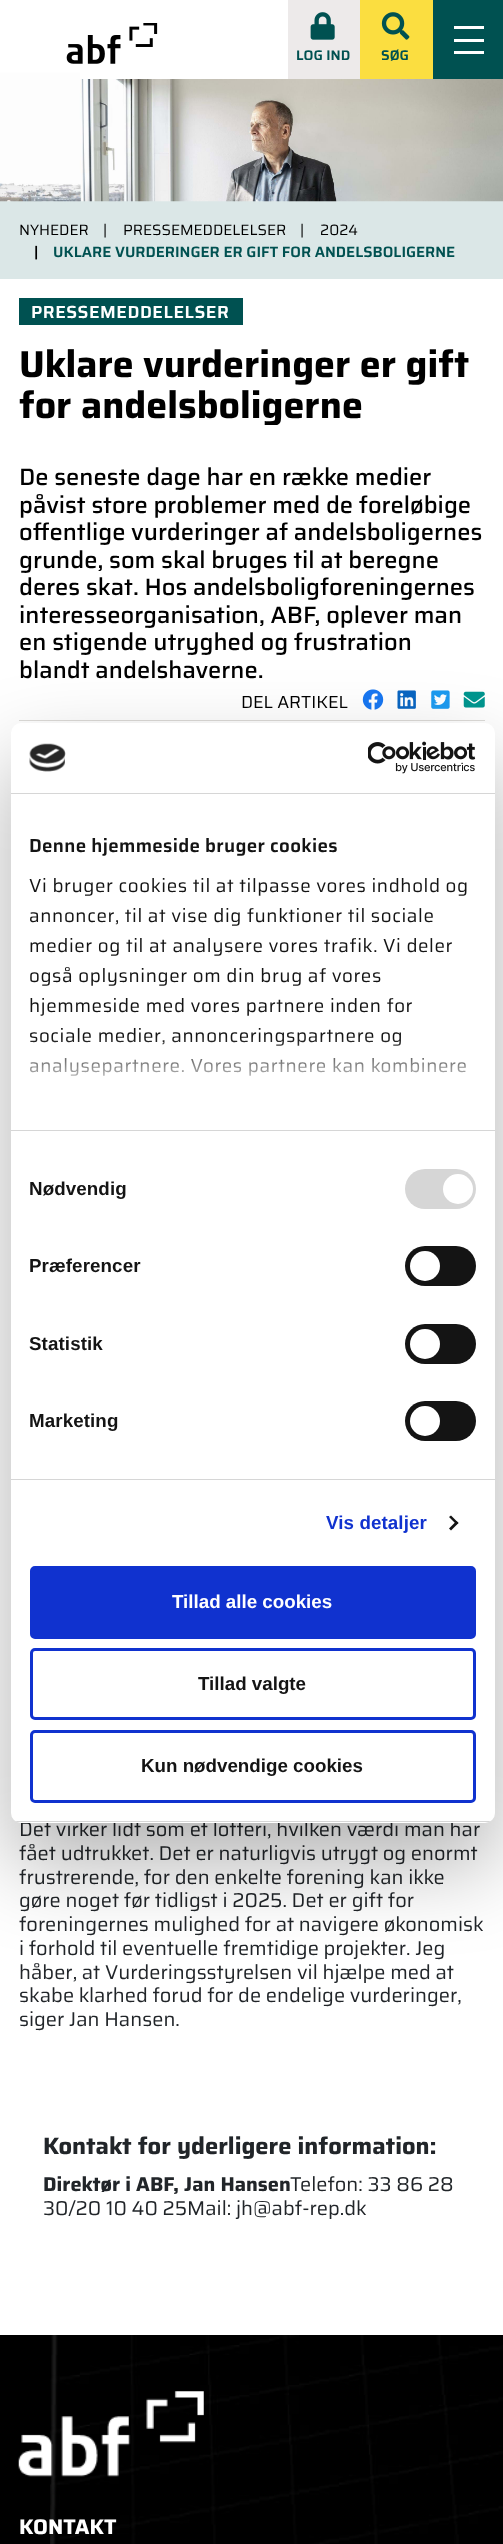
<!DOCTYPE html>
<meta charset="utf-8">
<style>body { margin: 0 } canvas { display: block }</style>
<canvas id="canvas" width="503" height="2544"></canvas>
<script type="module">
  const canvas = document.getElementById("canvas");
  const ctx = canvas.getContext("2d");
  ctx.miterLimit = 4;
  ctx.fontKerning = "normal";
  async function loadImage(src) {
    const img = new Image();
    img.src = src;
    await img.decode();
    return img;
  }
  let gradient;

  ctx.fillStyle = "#ffffff";
  ctx.fillRect(0, 0, 503, 2544);
  ctx.fillStyle = "#dbe7e7";
  ctx.fillRect(0, 201, 503, 78);
  ctx.drawImage(await loadImage("img4.png"), 0, 72, 503, 130);
  ctx.fillStyle = "#ffffff";
  ctx.fillRect(80, 72, 208, 7);
  ctx.drawImage(await loadImage("img1.png"), 66, 23, 92, 41);
  ctx.fillStyle = "#edeaea";
  ctx.fillRect(288, 0, 72, 79);
  ctx.drawImage(await loadImage("img2.png"), 310, 12, 25, 28);
  ctx.font = "100 14px 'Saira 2'";
  ctx.fillStyle = "#005151";
  ctx.fillText("LOG IND", 296, 60);
  ctx.fillStyle = "#fbde40";
  ctx.fillRect(360, 0, 73, 79);
  ctx.drawImage(await loadImage("img3.png"), 381, 12, 29, 28);
  ctx.fillStyle = "#005151";
  ctx.fillText("SØG", 381, 60);
  ctx.fillRect(433, 0, 70, 79);
  ctx.fillStyle = "#ffffff";
  ctx.fillRect(454, 39, 30, 3);
  ctx.fillRect(454, 26, 30, 3);
  ctx.fillRect(454, 51, 30, 3);
  ctx.font = "100 15px Saira";
  ctx.fillStyle = "#000000";
  ctx.fillText("NYHEDER", 19, 235);
  ctx.fillText("|", 103, 235);
  ctx.fillText("PRESSEMEDDELELSER", 123, 235);
  ctx.fillText("|", 300, 235);
  ctx.fillText("2024", 320, 235);
  ctx.font = "100 15px 'Saira 2'";
  ctx.fillText("|", 34, 257);
  ctx.fillStyle = "#005151";
  ctx.fillText("UKLARE VURDERINGER ER GIFT FOR ANDELSBOLIGERNE", 53, 257);
  ctx.fillRect(19, 298, 224, 27);
  ctx.letterSpacing = "0.5px";
  ctx.font = "100 17.5px 'Saira 2'";
  ctx.fillStyle = "#ffffff";
  ctx.fillText("PRESSEMEDDELELSER", 31, 318);
  ctx.letterSpacing = "0px";
  ctx.font = "100 37.5px 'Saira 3'";
  ctx.fillStyle = "#000000";
  ctx.fillText("Uklare vurderinger er gift", 19, 377);
  ctx.save();
  ctx.beginPath();
  ctx.rect(19, 343, 466, 82);
  ctx.clip();
  ctx.fillText("for andelsboligerne", 19, 418);
  ctx.restore();
  ctx.font = "100 23.75px 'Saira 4'";
  ctx.fillText("De seneste dage har en række medier", 19, 485);
  ctx.fillText("påvist store problemer med de foreløbige", 19, 513);
  ctx.fillText("offentlige vurderinger af andelsboligernes", 19, 540);
  ctx.fillText("grunde, som skal bruges til at beregne", 19, 568);
  ctx.fillText("deres skat. Hos andelsboligforeningernes", 19, 595);
  ctx.fillText("interesseorganisation, ABF, oplever man", 19, 623);
  ctx.fillText("en stigende utryghed og frustration", 19, 650);
  ctx.fillText("blandt andelshaverne.", 19, 678);
  ctx.font = "100 17.5px Saira";
  ctx.fillText("DEL ARTIKEL", 241, 708);
  ctx.drawImage(await loadImage("img5.png"), 362, 689, 22, 21);
  ctx.drawImage(await loadImage("img6.png"), 397, 690, 19, 19);
  ctx.drawImage(await loadImage("img7.png"), 431, 690, 19, 19);
  ctx.drawImage(await loadImage("img8.png"), 463, 691, 22, 17);
  ctx.fillStyle = "#dddbd8";
  ctx.fillRect(19, 720, 466, 1);
  ctx.font = "100 20px Saira";
  ctx.fillStyle = "#212529";
  ctx.fillText("Det virker lidt som et lotteri, hvilken værdi man har", 19, 1836);
  ctx.fillText("fået udtrukket. Det er naturligvis utrygt og enormt", 19, 1860);
  ctx.fillText("frustrerende, for den enkelte forening kan ikke", 19, 1884);
  ctx.fillText("gøre noget før tidligst i 2025. Det er gift for", 19, 1907);
  ctx.fillText("foreningernes mulighed for at navigere økonomisk", 19, 1931);
  ctx.fillText("i forhold til eventuelle fremtidige projekter. Jeg", 19, 1955);
  ctx.fillText("håber, at Vurderingsstyrelsen vil hjælpe med at", 19, 1979);
  ctx.fillText("skabe klarhed forud for de endelige vurderinger,", 19, 2002);
  ctx.fillText("siger Jan Hansen.", 19, 2026);
  ctx.font = "100 23.75px 'Saira 3'";
  ctx.fillText("Kontakt for yderligere information:", 43, 2154);
  ctx.font = "100 20px 'Saira 3'";
  ctx.fillText("Direktør i ABF, Jan Hansen", 43, 2191);
  ctx.font = "100 20px Saira";
  ctx.fillText("Telefon: 33 86 28", 290, 2191);
  ctx.fillText("30/20 10 40 25Mail: jh@abf-rep.dk", 43, 2215);
  ctx.fillStyle = "rgba(0, 0, 0, 0.3)";
  ctx.filter = "blur(42.5px)";
  ctx.beginPath();
  ctx.roundRect(11, 763, 484, 1100, 10);
  ctx.fill();
  ctx.filter = "none";
  ctx.fillStyle = "#ffffff";
  ctx.beginPath();
  ctx.roundRect(11, 723, 484, 1100, 10);
  ctx.fill();
  ctx.fillStyle = "#d6d6d6";
  ctx.fillRect(11, 793, 484, 1);
  ctx.drawImage(await loadImage("img9.png"), 29, 743, 37, 29);
  ctx.drawImage(await loadImage("img10.png"), 368, 741, 108, 33);
  ctx.fillRect(11, 1130, 484, 1);
  ctx.letterSpacing = "0.3px";
  ctx.font = "100 18.75px 'Saira 2'";
  ctx.fillStyle = "#141414";
  ctx.fillText("Denne hjemmeside bruger cookies", 29, 852);
  ctx.letterSpacing = "0.6px";
  ctx.font = "100 18.75px Saira";
  ctx.fillText("Vi bruger cookies til at tilpasse vores indhold og", 29, 892);
  ctx.fillText("annoncer, til at vise dig funktioner til sociale", 29, 922);
  ctx.fillText("medier og til at analysere vores trafik. Vi deler", 29, 952);
  ctx.fillText("også oplysninger om din brug af vores", 29, 982);
  ctx.fillText("hjemmeside med vores partnere inden for", 29, 1012);
  ctx.fillText("sociale medier, annonceringspartnere og", 29, 1042);
  ctx.fillText("analysepartnere. Vores partnere kan kombinere", 29, 1072);
  gradient = ctx.createLinearGradient(244, 1130, 244, 1037);
  gradient.addColorStop(0, "#ffffff");
  gradient.addColorStop(0.5, "rgba(255, 255, 255, 0.8)");
  gradient.addColorStop(1, "rgba(255, 255, 255, 0)");
  ctx.fillStyle = gradient;
  ctx.fillRect(29, 1038, 438, 38);
  ctx.fillStyle = "#d6d6d6";
  ctx.fillRect(11, 1479, 484, 1);
  ctx.letterSpacing = "0.1px";
  ctx.font = "bold 18.75px Liberation Sans";
  ctx.fillStyle = "#141414";
  ctx.fillText("Nødvendig", 29, 1195);
  ctx.fillStyle = "#d6d6d6";
  ctx.beginPath();
  ctx.roundRect(405, 1169, 71, 40, 20);
  ctx.fill();
  ctx.fillStyle = "#ffffff";
  ctx.beginPath();
  ctx.arc(458, 1189, 15, 0, Math.PI * 2);
  ctx.fill();
  ctx.fillStyle = "#141414";
  ctx.fillText("Præferencer", 29, 1272);
  ctx.beginPath();
  ctx.roundRect(405, 1246, 71, 40, 20);
  ctx.fill();
  ctx.fillStyle = "#ffffff";
  ctx.beginPath();
  ctx.arc(425, 1266, 15, 0, Math.PI * 2);
  ctx.fill();
  ctx.fillStyle = "#141414";
  ctx.fillText("Statistik", 29, 1350);
  ctx.beginPath();
  ctx.roundRect(405, 1324, 71, 40, 20);
  ctx.fill();
  ctx.fillStyle = "#ffffff";
  ctx.beginPath();
  ctx.arc(425, 1344, 15, 0, Math.PI * 2);
  ctx.fill();
  ctx.fillStyle = "#141414";
  ctx.fillText("Marketing", 29, 1427);
  ctx.beginPath();
  ctx.roundRect(405, 1401, 71, 40, 20);
  ctx.fill();
  ctx.fillStyle = "#ffffff";
  ctx.beginPath();
  ctx.arc(425, 1421, 15, 0, Math.PI * 2);
  ctx.fill();
  ctx.fillStyle = "#1032cf";
  ctx.fillText("Vis detaljer", 326, 1529);
  ctx.fillStyle = "#141414";
  ctx.beginPath();
  ctx.moveTo(451, 1515.5);
  ctx.lineTo(458.5, 1523);
  ctx.lineTo(456.5, 1524.5);
  ctx.lineTo(449, 1517);
  ctx.closePath();
  ctx.fill();
  ctx.beginPath();
  ctx.moveTo(456.5, 1521);
  ctx.lineTo(458.5, 1523);
  ctx.lineTo(451, 1530.5);
  ctx.lineTo(449, 1528.5);
  ctx.closePath();
  ctx.fill();
  ctx.save();
  ctx.beginPath();
  ctx.roundRect(11, 723, 484, 1100, 10);
  ctx.clip();
  ctx.fillStyle = "#d6d6d6";
  ctx.fillRect(11, 1821, 484, 1);
  ctx.restore();
  ctx.fillStyle = "#1032cf";
  ctx.beginPath();
  ctx.roundRect(31.5, 1567.5, 443, 70, 3.5);
  ctx.fill();
  ctx.strokeStyle = "#1032cf";
  ctx.lineWidth = 3;
  ctx.stroke();
  ctx.letterSpacing = "0px";
  ctx.fillStyle = "#ffffff";
  ctx.fillText("Tillad alle cookies", 172, 1608);
  ctx.beginPath();
  ctx.roundRect(31.5, 1649.5, 443, 69, 3.5);
  ctx.stroke();
  ctx.fillStyle = "#141414";
  ctx.fillText("Tillad valgte", 198, 1690);
  ctx.beginPath();
  ctx.roundRect(31.5, 1731.5, 443, 70, 3.5);
  ctx.stroke();
  ctx.fillText("Kun nødvendige cookies", 141, 1772);
  ctx.fillStyle = "#000000";
  ctx.fillRect(0, 2335, 50, 209);
  ctx.drawImage(await loadImage("img11.png"), 50, 2335, 453, 209);
  ctx.drawImage(await loadImage("img12.png"), 18, 2391, 186, 86);
  ctx.font = "100 21.25px 'Saira 3'";
  ctx.fillStyle = "#ffffff";
  ctx.fillText("KONTAKT", 19, 2534);
</script>
